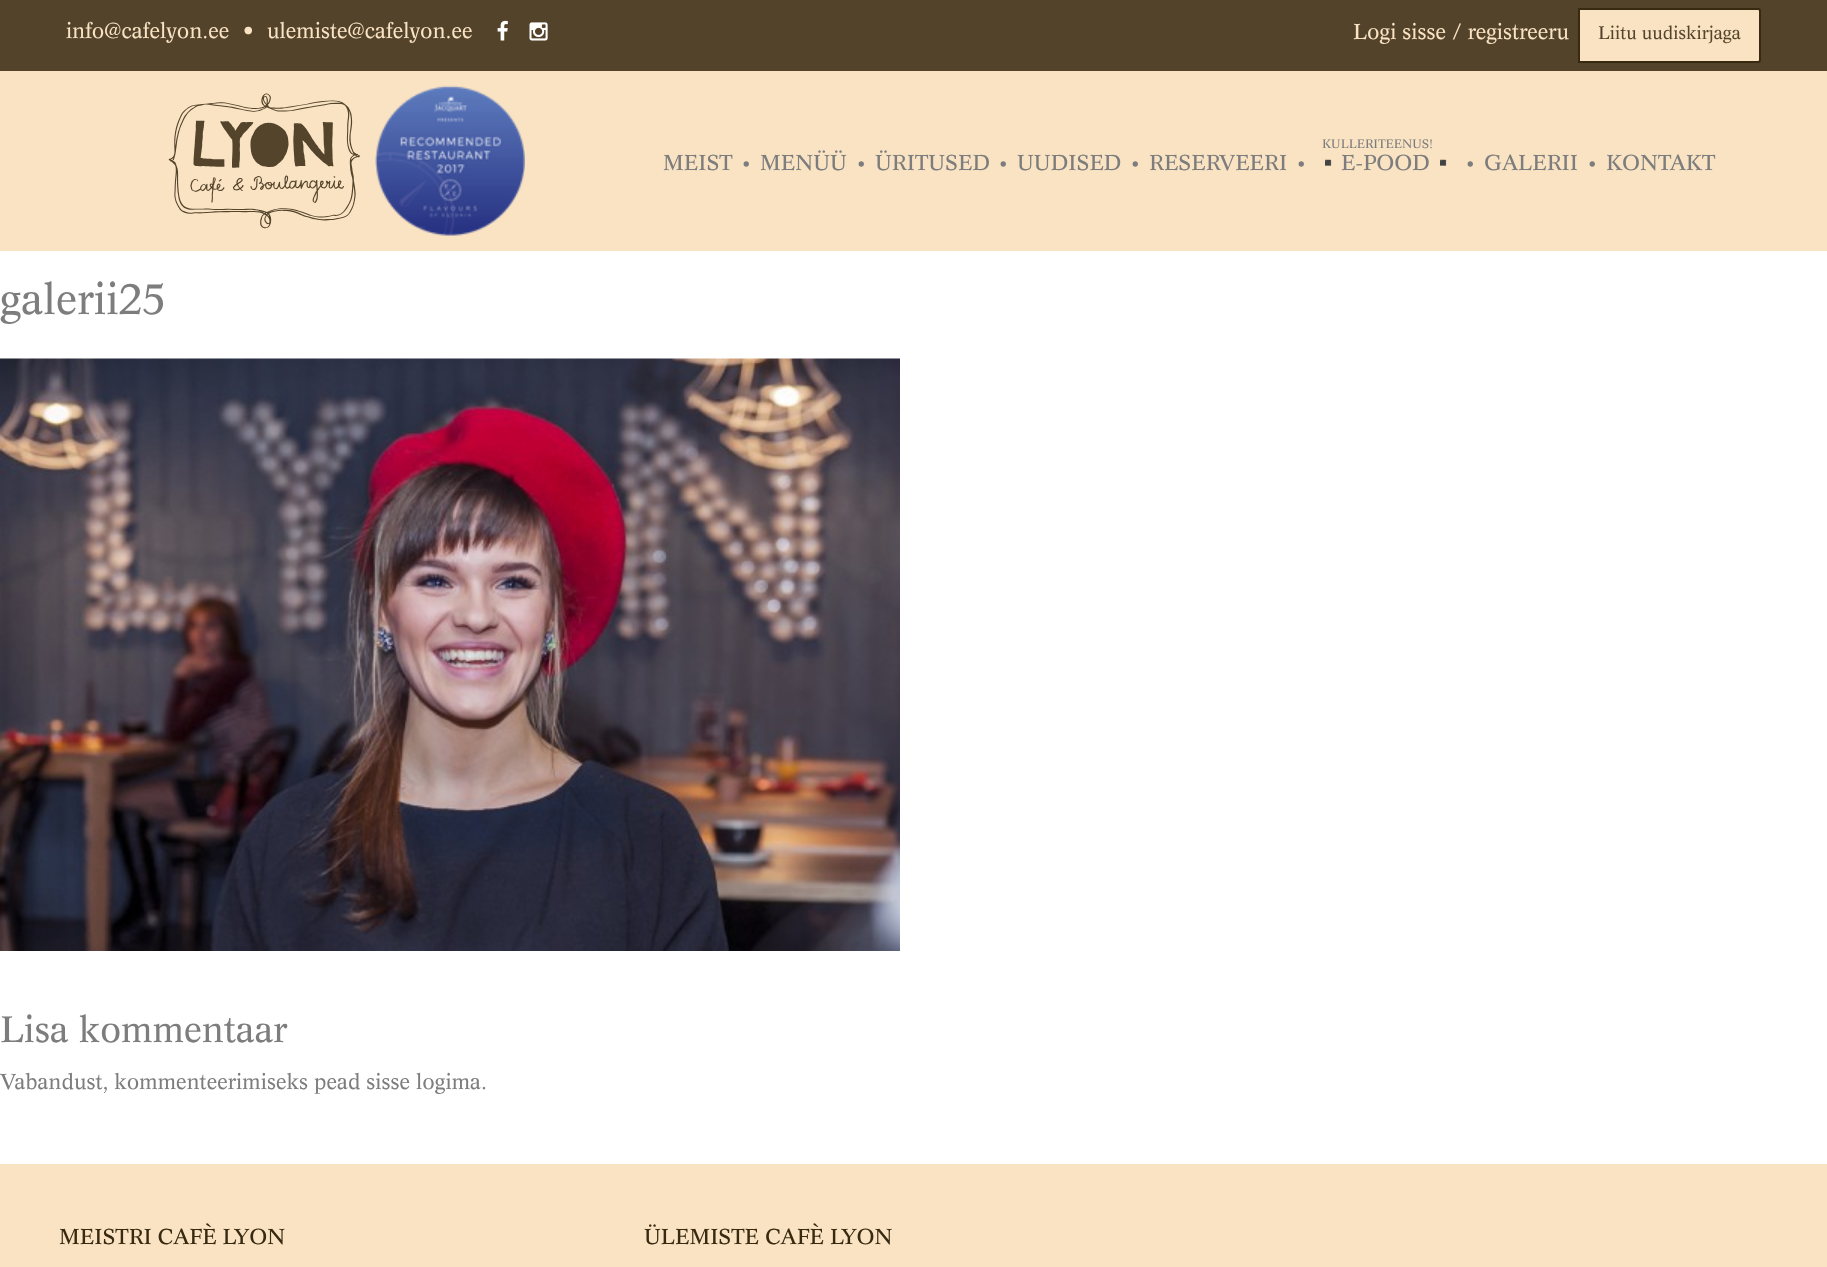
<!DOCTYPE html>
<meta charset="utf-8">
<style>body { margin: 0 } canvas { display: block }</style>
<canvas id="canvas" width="1827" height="1267"></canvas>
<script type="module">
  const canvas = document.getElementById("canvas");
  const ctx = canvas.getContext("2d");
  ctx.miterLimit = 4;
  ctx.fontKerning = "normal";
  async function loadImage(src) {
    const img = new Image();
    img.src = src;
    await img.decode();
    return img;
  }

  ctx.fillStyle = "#f9e3c3";
  ctx.fillRect(0, 0, 1827, 1267);
  ctx.fillStyle = "#54432b";
  ctx.fillRect(0, 0, 1827, 71);
  ctx.font = "21.15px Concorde";
  ctx.fillStyle = "#f9e3c3";
  ctx.fillText("info@cafelyon.ee", 66, 38);
  ctx.fillText("•", 243, 38);
  ctx.fillText("ulemiste@cafelyon.ee", 267, 38);
  ctx.drawImage(await loadImage("img1.png"), 497, 20, 11, 21);
  ctx.drawImage(await loadImage("img2.png"), 529, 22, 19, 19);
  ctx.fillText("Logi sisse / registreeru", 1353, 39);
  ctx.beginPath();
  ctx.roundRect(1579, 9, 181, 53, [0, 2, 2, 0]);
  ctx.fill();
  ctx.strokeStyle = "#382911";
  ctx.lineWidth = 2;
  ctx.stroke();
  ctx.font = "17.75px Concorde";
  ctx.fillStyle = "#55442c";
  ctx.fillText("Liitu uudiskirjaga", 1598, 39);
  ctx.drawImage(await loadImage("img3.png"), 168, 93, 192, 136);
  ctx.drawImage(await loadImage("img4.png"), 375, 85, 150, 151);
  ctx.font = "21.15px Concorde";
  ctx.fillStyle = "#7d7d7d";
  ctx.fillText("MEIST", 663, 170);
  ctx.font = "45px Concorde";
  ctx.fillText("·", 740, 178);
  ctx.font = "21.15px Concorde";
  ctx.fillText("MENÜÜ", 760, 170);
  ctx.font = "45px Concorde";
  ctx.fillText("·", 855, 178);
  ctx.font = "21.15px Concorde";
  ctx.fillText("ÜRITUSED", 875, 170);
  ctx.font = "45px Concorde";
  ctx.fillText("·", 997, 178);
  ctx.font = "21.15px Concorde";
  ctx.fillText("UUDISED", 1017, 170);
  ctx.font = "45px Concorde";
  ctx.fillText("·", 1129, 178);
  ctx.font = "21.15px Concorde";
  ctx.fillText("RESERVEERI", 1149, 170);
  ctx.font = "45px Concorde";
  ctx.fillText("·", 1295, 178);
  ctx.font = "12px Concorde";
  ctx.fillText("KULLERITEENUS!", 1322, 148);
  ctx.font = "21.15px Noto Color Emoji";
  ctx.fillText("▪️", 1315, 170);
  ctx.font = "21.15px Concorde";
  ctx.fillText("E-POOD", 1341, 170);
  ctx.font = "21.15px Noto Color Emoji";
  ctx.fillText("▪️", 1430, 170);
  ctx.font = "45px Concorde";
  ctx.fillText("·", 1464, 178);
  ctx.font = "21.15px Concorde";
  ctx.fillText("GALERII", 1484, 170);
  ctx.font = "45px Concorde";
  ctx.fillText("·", 1586, 178);
  ctx.font = "21.15px Concorde";
  ctx.fillText("KONTAKT", 1606, 170);
  ctx.fillStyle = "#ffffff";
  ctx.fillRect(0, 251, 1827, 913);
  ctx.font = "42.5px Concorde";
  ctx.fillStyle = "#7d7d7d";
  ctx.fillText("galerii25", 0, 314);
  ctx.drawImage(await loadImage("img5.png"), 0, 358, 900, 593);
  ctx.font = "36px Concorde";
  ctx.fillText("Lisa kommentaar", 0, 1042);
  ctx.font = "21.15px Concorde";
  ctx.fillText("Vabandust, kommenteerimiseks pead sisse logima.", 0, 1089);
  ctx.fillStyle = "#382911";
  ctx.fillText("MEISTRI CAFÈ LYON", 59, 1244);
  ctx.fillText("ÜLEMISTE CAFÈ LYON", 644, 1244);
</script>
